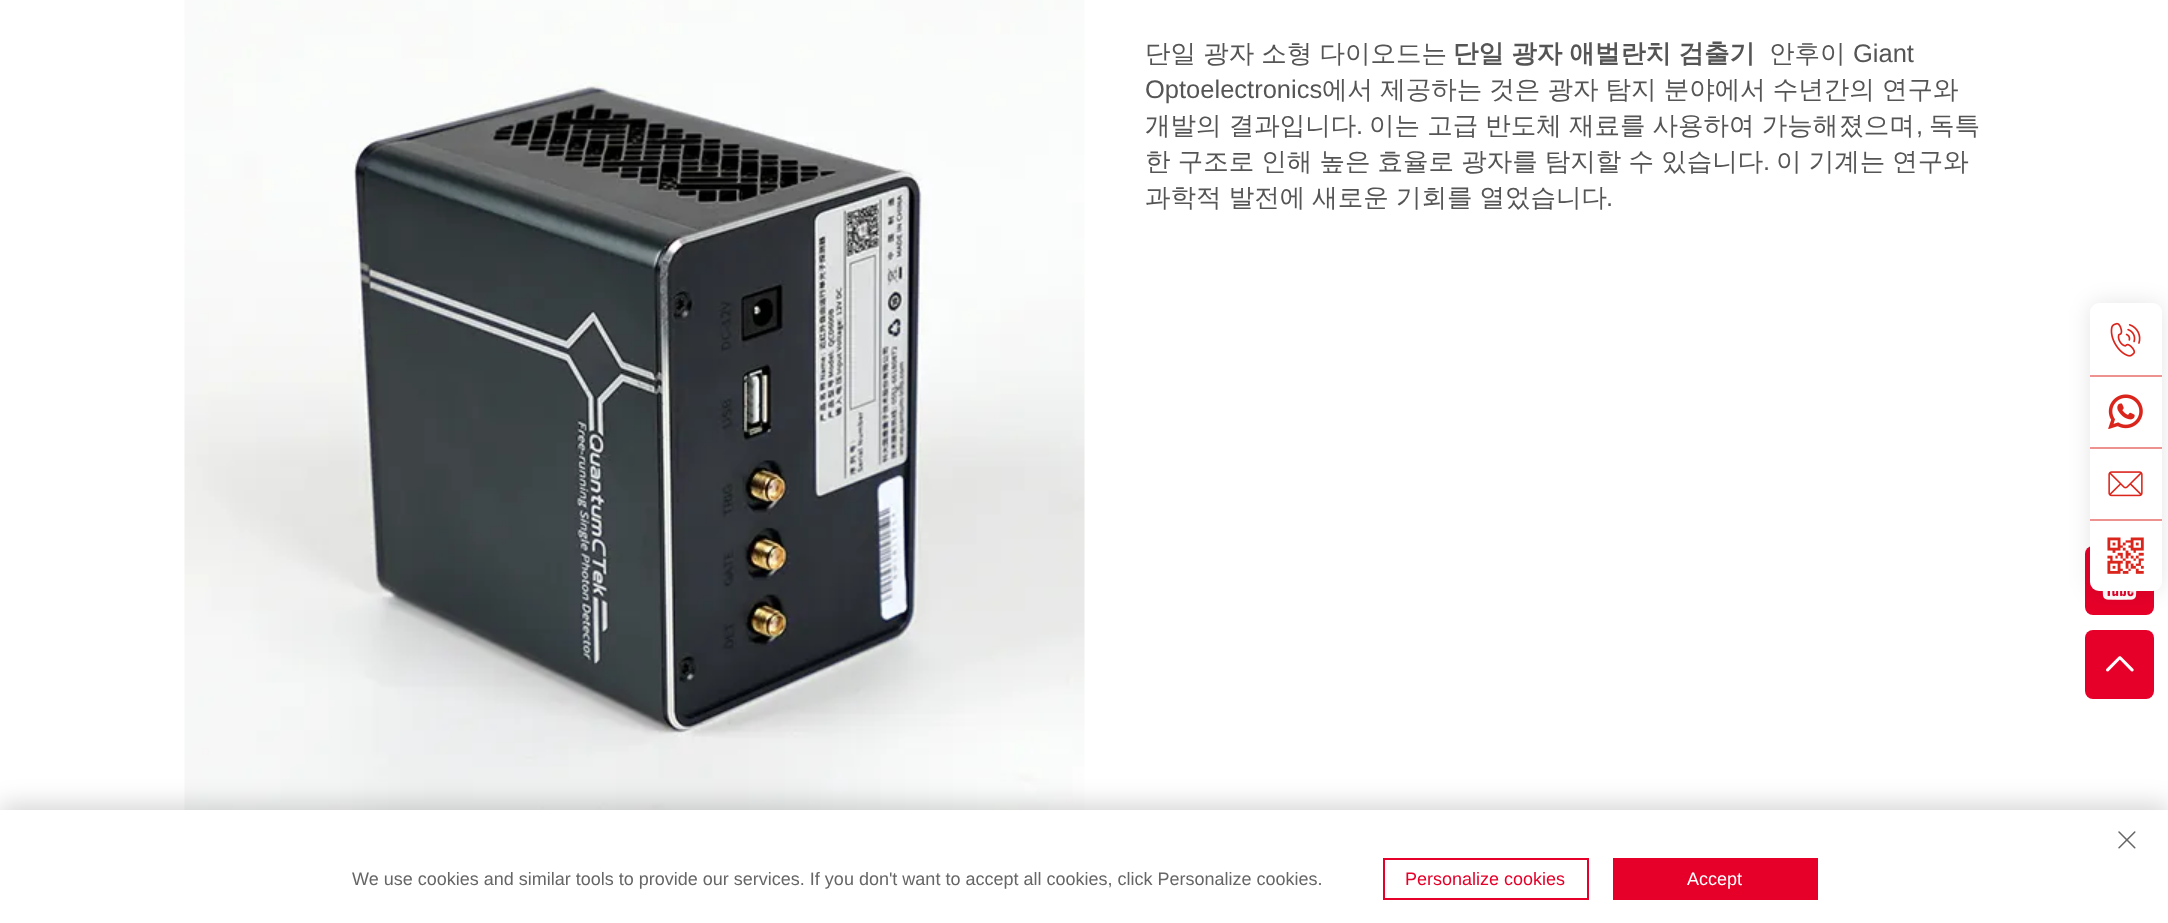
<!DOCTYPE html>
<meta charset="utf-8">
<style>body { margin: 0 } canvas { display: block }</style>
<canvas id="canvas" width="2168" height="923"></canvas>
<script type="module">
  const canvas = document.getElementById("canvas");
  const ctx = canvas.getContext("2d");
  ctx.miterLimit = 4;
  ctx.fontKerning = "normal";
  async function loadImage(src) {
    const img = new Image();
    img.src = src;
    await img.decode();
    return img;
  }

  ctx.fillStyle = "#ffffff";
  ctx.fillRect(0, 0, 2168, 923);
  ctx.drawImage(await loadImage("img1.png"), 184, 0, 901, 810);
  ctx.wordSpacing = "-0.5px";
  ctx.font = "500 25.5px WenQuanYi Zen Hei";
  ctx.fillStyle = "#555555";
  ctx.fillText("단일 광자 소형 다이오드는", 1145, 62);
  ctx.font = "bold 25.5px WenQuanYi Zen Hei";
  ctx.fillText("단일 광자 애벌란치 검출기", 1453, 62);
  ctx.wordSpacing = "0px";
  ctx.font = "500 25.5px WenQuanYi Zen Hei";
  ctx.fillText("안후이", 1769, 62);
  ctx.font = "25.5px Liberation Sans";
  ctx.fillText("Giant", 1853, 62);
  ctx.fillText("Optoelectronics", 1145, 98);
  ctx.wordSpacing = "-0.5px";
  ctx.font = "500 25.5px WenQuanYi Zen Hei";
  ctx.fillText("에서 제공하는 것은 광자 탐지 분야에서 수년간의 연구와", 1322, 98);
  ctx.fillText("개발의 결과입니다", 1145, 134);
  ctx.wordSpacing = "0px";
  ctx.font = "25.5px Liberation Sans";
  ctx.fillText(".", 1356, 134);
  ctx.wordSpacing = "-0.5px";
  ctx.font = "500 25.5px WenQuanYi Zen Hei";
  ctx.fillText("이는 고급 반도체 재료를 사용하여 가능해졌으며", 1369, 134);
  ctx.wordSpacing = "0px";
  ctx.font = "25.5px Liberation Sans";
  ctx.fillText(",", 1916, 134);
  ctx.font = "500 25.5px WenQuanYi Zen Hei";
  ctx.fillText("독특", 1929, 134);
  ctx.wordSpacing = "-0.5px";
  ctx.fillText("한 구조로 인해 높은 효율로 광자를 탐지할 수 있습니다", 1145, 170);
  ctx.wordSpacing = "0px";
  ctx.font = "25.5px Liberation Sans";
  ctx.fillText(".", 1763, 170);
  ctx.wordSpacing = "-0.5px";
  ctx.font = "500 25.5px WenQuanYi Zen Hei";
  ctx.fillText("이 기계는 연구와", 1776, 170);
  ctx.fillText("과학적 발전에 새로운 기회를 열었습니다", 1145, 206);
  ctx.wordSpacing = "0px";
  ctx.font = "25.5px Liberation Sans";
  ctx.fillText(".", 1606, 206);
  ctx.fillStyle = "#e60029";
  ctx.beginPath();
  ctx.roundRect(2085, 546, 69, 69, 8);
  ctx.fill();
  ctx.drawImage(await loadImage("img6.png"), 2102, 591, 35, 9);
  ctx.fillStyle = "rgba(1, 1, 1, 0.1)";
  ctx.filter = "blur(11px)";
  ctx.beginPath();
  ctx.roundRect(2090, 303, 72, 288, 9);
  ctx.fill();
  ctx.filter = "none";
  ctx.fillStyle = "#ffffff";
  ctx.beginPath();
  ctx.roundRect(2090, 303, 72, 288, 9);
  ctx.fill();
  ctx.drawImage(await loadImage("img2.png"), 2110, 322, 31, 35);
  ctx.fillStyle = "#ed928e";
  ctx.fillRect(2090, 375, 72, 2);
  ctx.drawImage(await loadImage("img3.png"), 2108, 394, 35, 35);
  ctx.fillRect(2090, 447, 72, 2);
  ctx.drawImage(await loadImage("img4.png"), 2108, 471, 35, 26);
  ctx.fillRect(2090, 519, 72, 2);
  ctx.drawImage(await loadImage("img5.png"), 2107, 537, 37, 37);
  ctx.fillStyle = "#e60029";
  ctx.beginPath();
  ctx.roundRect(2085, 630, 69, 69, 8);
  ctx.fill();
  ctx.drawImage(await loadImage("img7.png"), 2106, 656, 28, 16);
  ctx.fillStyle = "rgba(0, 0, 0, 0.16)";
  ctx.filter = "blur(12px)";
  ctx.beginPath();
  ctx.rect(0, 804, 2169, 114);
  ctx.fill();
  ctx.filter = "none";
  ctx.fillStyle = "#ffffff";
  ctx.fillRect(0, 810, 2168, 113);
  ctx.drawImage(await loadImage("img8.png"), 2118, 831, 18, 18);
  ctx.font = "18px Liberation Sans";
  ctx.fillStyle = "#666666";
  ctx.fillText("We use cookies and similar tools to provide our services. If you don't want to accept all cookies, click Personalize cookies.", 352, 885);
  ctx.strokeStyle = "#e60029";
  ctx.lineWidth = 2;
  ctx.strokeRect(1384, 859, 204, 40);
  ctx.fillStyle = "#e60029";
  ctx.fillText("Personalize cookies", 1405, 885);
  ctx.fillRect(1613, 858, 205, 42);
  ctx.fillStyle = "#ffffff";
  ctx.fillText("Accept", 1687, 885);
</script>
